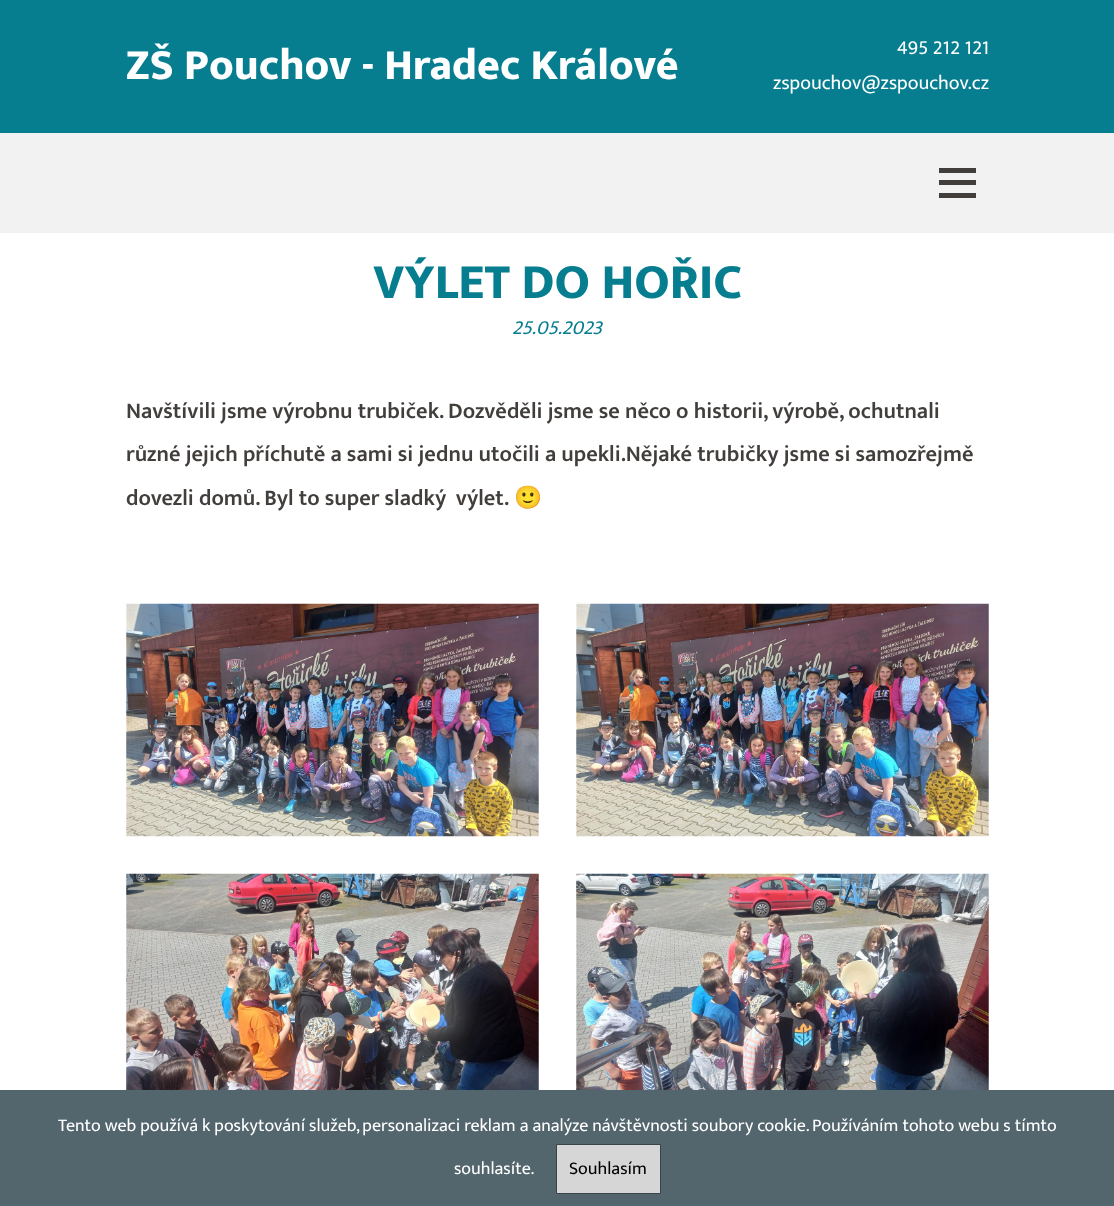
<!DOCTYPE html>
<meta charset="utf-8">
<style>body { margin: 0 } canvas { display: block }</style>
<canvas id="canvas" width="1114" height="1206"></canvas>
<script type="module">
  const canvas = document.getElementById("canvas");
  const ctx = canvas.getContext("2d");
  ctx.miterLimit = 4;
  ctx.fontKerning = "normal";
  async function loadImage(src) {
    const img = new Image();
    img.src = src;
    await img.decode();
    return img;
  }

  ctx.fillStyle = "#ffffff";
  ctx.fillRect(0, 0, 1114, 1206);
  ctx.fillStyle = "#077e90";
  ctx.fillRect(0, 0, 1114, 133);
  ctx.font = "800 43.75px Mukta Vaani";
  ctx.fillStyle = "#ffffff";
  ctx.fillText("ZŠ Pouchov - Hradec Králové", 126, 79);
  ctx.font = "20px Mukta Vaani";
  ctx.fillText("495 212 121", 897, 54);
  ctx.fillText("zspouchov@zspouchov.cz", 773, 89);
  ctx.fillStyle = "#f2f2f2";
  ctx.fillRect(0, 133, 1114, 100);
  ctx.fillStyle = "#423e3c";
  ctx.fillRect(939, 180, 37, 5);
  ctx.fillRect(939, 168, 37, 5);
  ctx.fillRect(939, 193, 37, 5);
  ctx.font = "800 50px Mukta Vaani";
  ctx.fillStyle = "#077e90";
  ctx.fillText("VÝLET DO HOŘIC", 373, 298);
  ctx.font = "italic 20px Mukta Vaani";
  ctx.fillText("25.05.2023", 512, 334);
  ctx.font = "600 22.5px Mukta Vaani";
  ctx.fillStyle = "#423e3c";
  ctx.fillText("Navštívili jsme výrobnu trubiček. Dozvěděli jsme se něco o historii, výrobě, ochutnali", 126, 418);
  ctx.fillText("různé jejich příchutě a sami si jednu utočili a upekli.Nějaké trubičky jsme si samozřejmě", 126, 461);
  ctx.fillText("dovezli domů. Byl to super sladký  výlet.", 126, 505);
  ctx.font = "bold 22.5px Noto Color Emoji";
  ctx.fillText("🙂", 514, 505);
  ctx.drawImage(await loadImage("img1.png"), 126, 603, 413, 234);
  ctx.drawImage(await loadImage("img2.png"), 576, 603, 413, 234);
  ctx.drawImage(await loadImage("img3.png"), 126, 873, 413, 217);
  ctx.drawImage(await loadImage("img4.png"), 576, 873, 413, 217);
  ctx.fillStyle = "#53656d";
  ctx.fillRect(0, 1090, 1114, 116);
  ctx.font = "18px Mukta Vaani";
  ctx.fillStyle = "#ffffff";
  ctx.fillText("Tento web používá k poskytování služeb, personalizaci reklam a analýze návštěvnosti soubory cookie. Používáním tohoto webu s tímto", 58, 1131);
  ctx.fillText("souhlasíte.", 454, 1174);
  ctx.fillStyle = "#d6d6d6";
  ctx.beginPath();
  ctx.rect(556.5, 1144.5, 104, 49);
  ctx.fill();
  ctx.strokeStyle = "#394448";
  ctx.stroke();
  ctx.fillStyle = "#000000";
  ctx.fillText("Souhlasím", 569, 1174);
</script>
